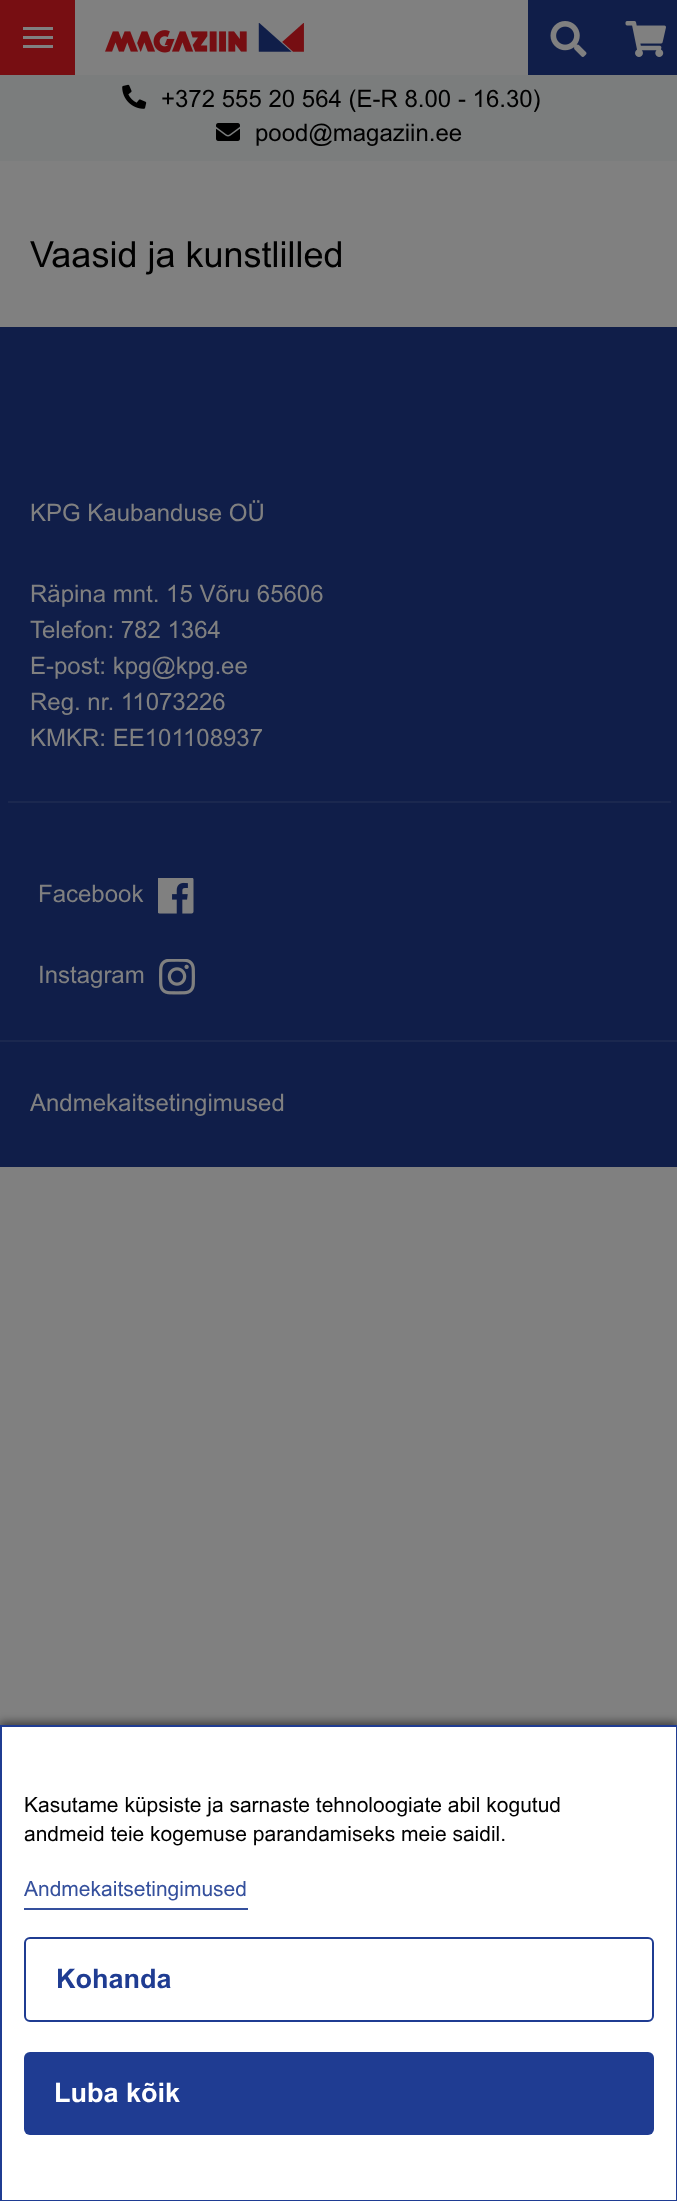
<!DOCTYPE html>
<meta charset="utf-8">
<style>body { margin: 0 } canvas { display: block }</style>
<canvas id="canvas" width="677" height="2201"></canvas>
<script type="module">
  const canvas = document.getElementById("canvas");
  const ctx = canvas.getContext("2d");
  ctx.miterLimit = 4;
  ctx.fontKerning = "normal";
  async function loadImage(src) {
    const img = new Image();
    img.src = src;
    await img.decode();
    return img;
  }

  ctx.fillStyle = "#808080";
  ctx.fillRect(0, 0, 677, 2201);
  ctx.fillStyle = "#7b7d7d";
  ctx.fillRect(0, 75, 677, 86);
  ctx.fillStyle = "#770e12";
  ctx.fillRect(0, 0, 75, 75);
  ctx.fillStyle = "#808080";
  ctx.fillRect(23, 27, 30, 3);
  ctx.fillRect(23, 36, 30, 3);
  ctx.fillRect(23, 45, 30, 3);
  ctx.fillStyle = "#101e49";
  ctx.fillRect(528, 0, 149, 75);
  ctx.drawImage(await loadImage("img1.png"), 550, 21, 37, 36);
  ctx.drawImage(await loadImage("img2.png"), 105, 23, 199, 30);
  ctx.drawImage(await loadImage("img3.png"), 625, 21, 41, 36);
  ctx.drawImage(await loadImage("img4.png"), 122, 84, 25, 25);
  ctx.font = "24px Arial";
  ctx.fillStyle = "#000000";
  ctx.fillText("+372 555 20 564 (E-R 8.00 - 16.30)", 161, 107);
  ctx.drawImage(await loadImage("img5.png"), 216, 123, 24, 18);
  ctx.fillText("pood@magaziin.ee", 255, 141);
  ctx.font = "36px Arial";
  ctx.fillText("Vaasid ja kunstlilled", 30, 267);
  ctx.fillStyle = "#101e49";
  ctx.fillRect(0, 327, 677, 840);
  ctx.font = "24px Arial";
  ctx.fillStyle = "#808080";
  ctx.fillText("KPG Kaubanduse OÜ", 30, 521);
  ctx.fillText("Räpina mnt. 15 Võru 65606", 30, 602);
  ctx.fillText("Telefon: 782 1364", 30, 638);
  ctx.fillText("E-post: kpg@kpg.ee", 30, 674);
  ctx.fillText("Reg. nr. 11073226", 30, 710);
  ctx.fillText("KMKR: EE101108937", 30, 746);
  ctx.fillStyle = "#1b284f";
  ctx.fillRect(8, 801, 663, 2);
  ctx.fillStyle = "#808080";
  ctx.fillText("Facebook", 38, 902);
  ctx.drawImage(await loadImage("img6.png"), 158, 878, 36, 36);
  ctx.fillText("Instagram", 38, 983);
  ctx.drawImage(await loadImage("img7.png"), 159, 959, 36, 36);
  ctx.fillStyle = "#1b284f";
  ctx.fillRect(0, 1040, 677, 2);
  ctx.fillStyle = "#808080";
  ctx.fillText("Andmekaitsetingimused", 30, 1111);
  ctx.fillStyle = "rgba(0, 0, 0, 0.5)";
  ctx.filter = "blur(4px)";
  ctx.beginPath();
  ctx.rect(0, 1722, 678, 477);
  ctx.fill();
  ctx.filter = "none";
  ctx.fillStyle = "#ffffff";
  ctx.beginPath();
  ctx.rect(1, 1726, 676, 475);
  ctx.fill();
  ctx.strokeStyle = "#1f3c92";
  ctx.lineWidth = 2;
  ctx.stroke();
  ctx.font = "21px Arial";
  ctx.fillStyle = "#000000";
  ctx.fillText("Kasutame küpsiste ja sarnaste tehnoloogiate abil kogutud", 24, 1812);
  ctx.fillText("andmeid teie kogemuse parandamiseks meie saidil.", 24, 1841);
  ctx.fillStyle = "#35509d";
  ctx.fillText("Andmekaitsetingimused", 24, 1896);
  ctx.fillRect(24, 1908, 224, 2);
  ctx.beginPath();
  ctx.roundRect(25, 1938, 628, 83, 5);
  ctx.stroke();
  ctx.font = "bold 27px Arial";
  ctx.fillStyle = "#1f3c92";
  ctx.fillText("Kohanda", 56, 1988);
  ctx.beginPath();
  ctx.roundRect(24, 2052, 630, 83, 6);
  ctx.fill();
  ctx.fillStyle = "#ffffff";
  ctx.fillText("Luba kõik", 54, 2102);
</script>
